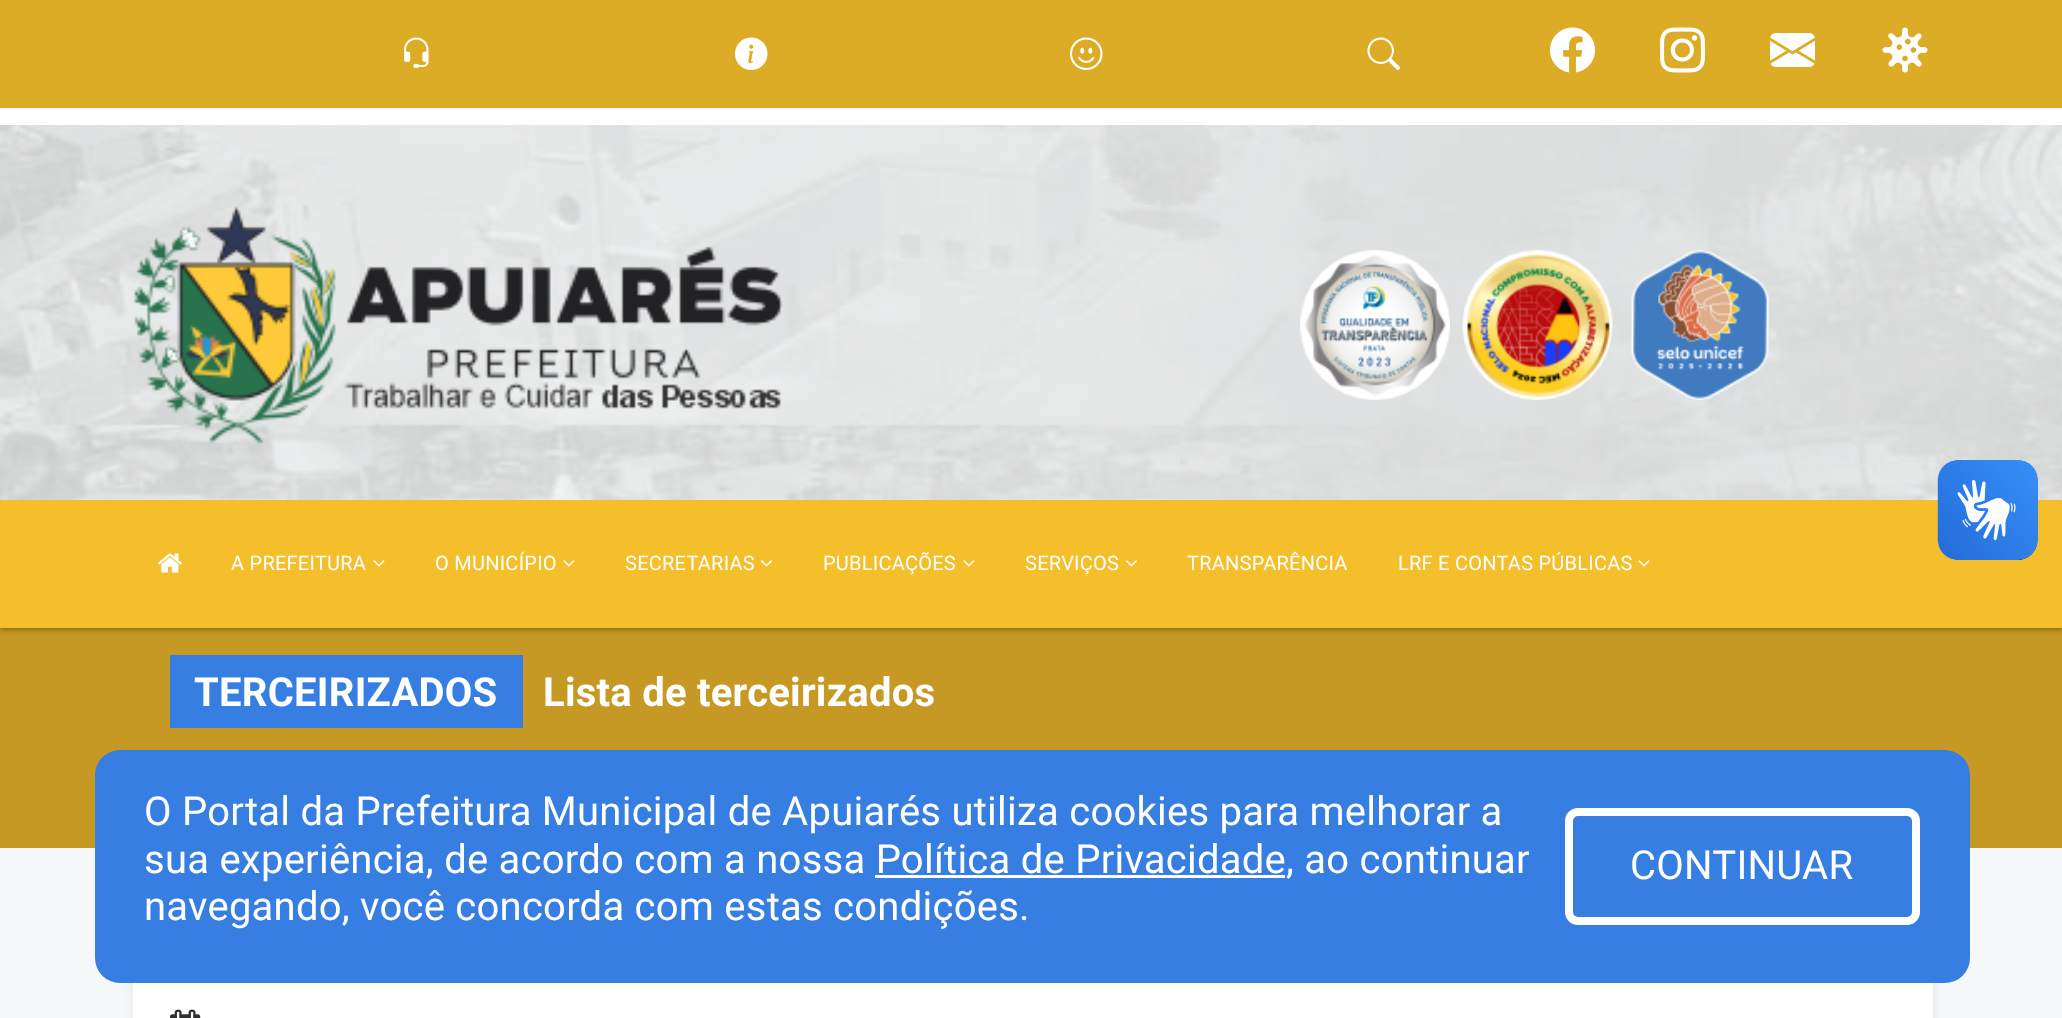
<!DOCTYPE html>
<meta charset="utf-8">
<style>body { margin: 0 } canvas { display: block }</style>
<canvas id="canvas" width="2062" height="1018"></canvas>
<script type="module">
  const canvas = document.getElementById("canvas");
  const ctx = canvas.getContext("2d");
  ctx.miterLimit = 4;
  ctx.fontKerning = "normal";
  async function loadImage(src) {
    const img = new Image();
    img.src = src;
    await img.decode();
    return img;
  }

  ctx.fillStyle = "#f6f7f8";
  ctx.fillRect(0, 0, 2062, 1018);
  ctx.fillStyle = "rgba(3, 0, 71, 0.09)";
  ctx.filter = "blur(4px)";
  ctx.beginPath();
  ctx.roundRect(133, 775, 1800, 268, 13);
  ctx.fill();
  ctx.filter = "none";
  ctx.fillStyle = "#c59923";
  ctx.fillRect(0, 628, 2062, 220);
  ctx.fillStyle = "rgba(0, 0, 0, 0.3)";
  ctx.filter = "blur(2.5px)";
  ctx.beginPath();
  ctx.rect(0, 3, 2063, 627);
  ctx.fill();
  ctx.filter = "none";
  ctx.drawImage(await loadImage("img3.png"), 0, 125, 2062, 375);
  ctx.fillStyle = "#f5bf2b";
  ctx.fillRect(0, 500, 2062, 128);
  ctx.drawImage(await loadImage("img1.png"), 1937, 460, 101, 100);
  ctx.drawImage(await loadImage("img2.png"), 1938, 460, 100, 100);
  ctx.fillStyle = "#dcac27";
  ctx.fillRect(0, 0, 2062, 108);
  ctx.drawImage(await loadImage("img4.png"), 404, 37, 25, 31);
  ctx.drawImage(await loadImage("img5.png"), 735, 37, 33, 33);
  ctx.drawImage(await loadImage("img6.png"), 1070, 37, 33, 33);
  ctx.drawImage(await loadImage("img7.png"), 1367, 37, 33, 33);
  ctx.drawImage(await loadImage("img8.png"), 1550, 27, 45, 46);
  ctx.drawImage(await loadImage("img9.png"), 1660, 27, 45, 46);
  ctx.drawImage(await loadImage("img10.png"), 1770, 33, 45, 34);
  ctx.drawImage(await loadImage("img11.png"), 1882, 27, 46, 46);
  ctx.fillStyle = "#ffffff";
  ctx.fillRect(0, 108, 2062, 17);
  ctx.drawImage(await loadImage("img12.png"), 132, 206, 651, 238);
  ctx.drawImage(await loadImage("img13.png"), 1300, 250, 150, 150);
  ctx.drawImage(await loadImage("img14.png"), 1462, 250, 151, 150);
  ctx.drawImage(await loadImage("img15.png"), 1630, 250, 140, 150);
  ctx.drawImage(await loadImage("img16.png"), 157, 553, 25, 20);
  ctx.letterSpacing = "0.25px";
  ctx.font = "20px Roboto";
  ctx.fillText("A PREFEITURA", 231, 570);
  ctx.drawImage(await loadImage("img17.png"), 373, 560, 12, 7);
  ctx.fillText("O MUNICÍPIO", 435, 570);
  ctx.drawImage(await loadImage("img17.png"), 563, 560, 12, 7);
  ctx.fillText("SECRETARIAS", 625, 570);
  ctx.drawImage(await loadImage("img18.png"), 760, 560, 12, 7);
  ctx.fillText("PUBLICAÇÕES", 823, 570);
  ctx.drawImage(await loadImage("img17.png"), 963, 560, 12, 7);
  ctx.fillText("SERVIÇOS", 1025, 570);
  ctx.drawImage(await loadImage("img18.png"), 1125, 560, 12, 7);
  ctx.fillText("TRANSPARÊNCIA", 1187, 570);
  ctx.fillText("LRF E CONTAS PÚBLICAS", 1398, 570);
  ctx.drawImage(await loadImage("img17.png"), 1638, 560, 12, 7);
  ctx.fillStyle = "#367ee1";
  ctx.fillRect(170, 655, 353, 73);
  ctx.font = "bold 40px Roboto";
  ctx.fillStyle = "#ffffff";
  ctx.fillText("TERCEIRIZADOS", 194, 706);
  ctx.fillText("Lista de terceirizados", 543, 706);
  ctx.fillRect(133, 983, 1800, 35);
  ctx.drawImage(await loadImage("img19.png"), 170, 1009, 31, 9);
  ctx.fillStyle = "#367ee1";
  ctx.beginPath();
  ctx.roundRect(95, 750, 1875, 233, 25);
  ctx.fill();
  ctx.font = "40px Roboto";
  ctx.fillStyle = "#ffffff";
  ctx.fillText("O Portal da Prefeitura Municipal de Apuiarés utiliza cookies para melhorar a", 144, 825);
  ctx.fillText("sua experiência, de acordo com a nossa Política de Privacidade, ao continuar", 144, 873);
  ctx.fillRect(875, 875, 410, 3);
  ctx.fillText("navegando, você concorda com estas condições.", 144, 920);
  ctx.beginPath();
  ctx.roundRect(1569, 812, 347, 109, 9);
  ctx.strokeStyle = "#ffffff";
  ctx.lineWidth = 8;
  ctx.stroke();
  ctx.fillText("CONTINUAR", 1630, 879);
</script>
